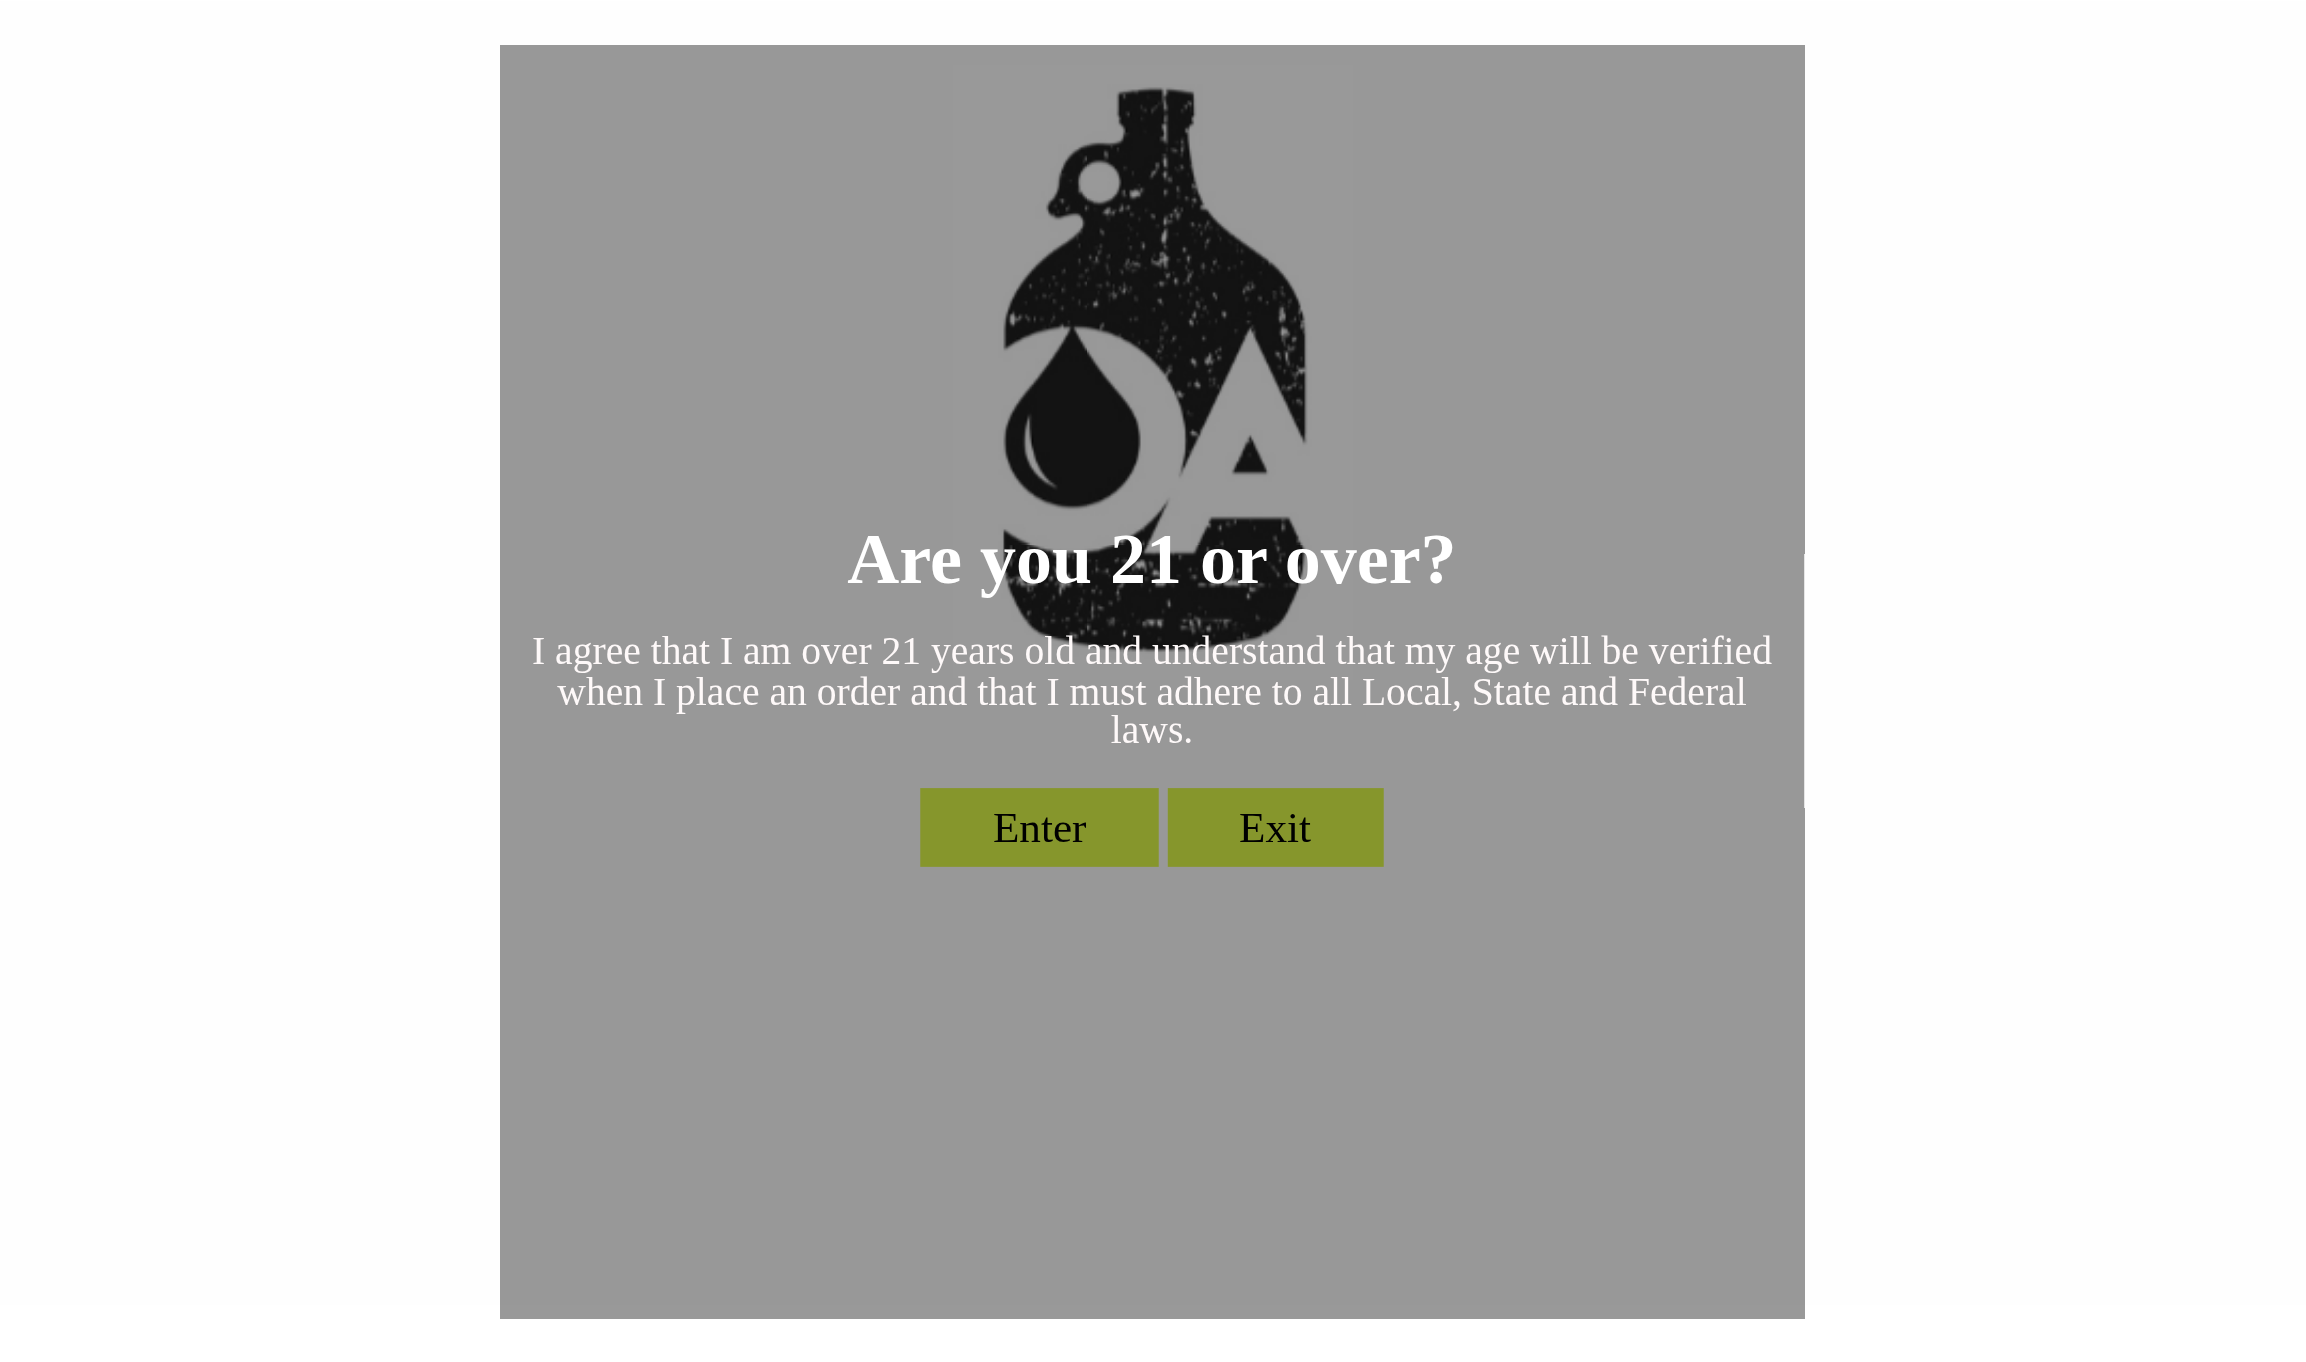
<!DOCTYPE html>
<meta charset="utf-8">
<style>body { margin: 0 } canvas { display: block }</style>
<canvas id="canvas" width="2306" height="1362"></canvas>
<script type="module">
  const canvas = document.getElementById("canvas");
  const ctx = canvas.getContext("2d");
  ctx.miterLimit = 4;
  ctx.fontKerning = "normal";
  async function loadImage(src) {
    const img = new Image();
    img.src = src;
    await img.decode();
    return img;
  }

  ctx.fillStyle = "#ffffff";
  ctx.fillRect(0, 0, 2306, 1362);
  ctx.fillStyle = "#eaf0f6";
  ctx.filter = "blur(3.5px)";
  ctx.beginPath();
  ctx.rect(0, 923, 2306, 438);
  ctx.fill();
  ctx.filter = "none";
  ctx.fillStyle = "#ffffff";
  ctx.fillRect(0, 925, 2306, 437);
  ctx.drawImage(await loadImage("img1.png"), 0, 1, 2306, 1304);
  ctx.drawImage(await loadImage("img2.png"), 500, 45, 1305, 1274);
</script>
